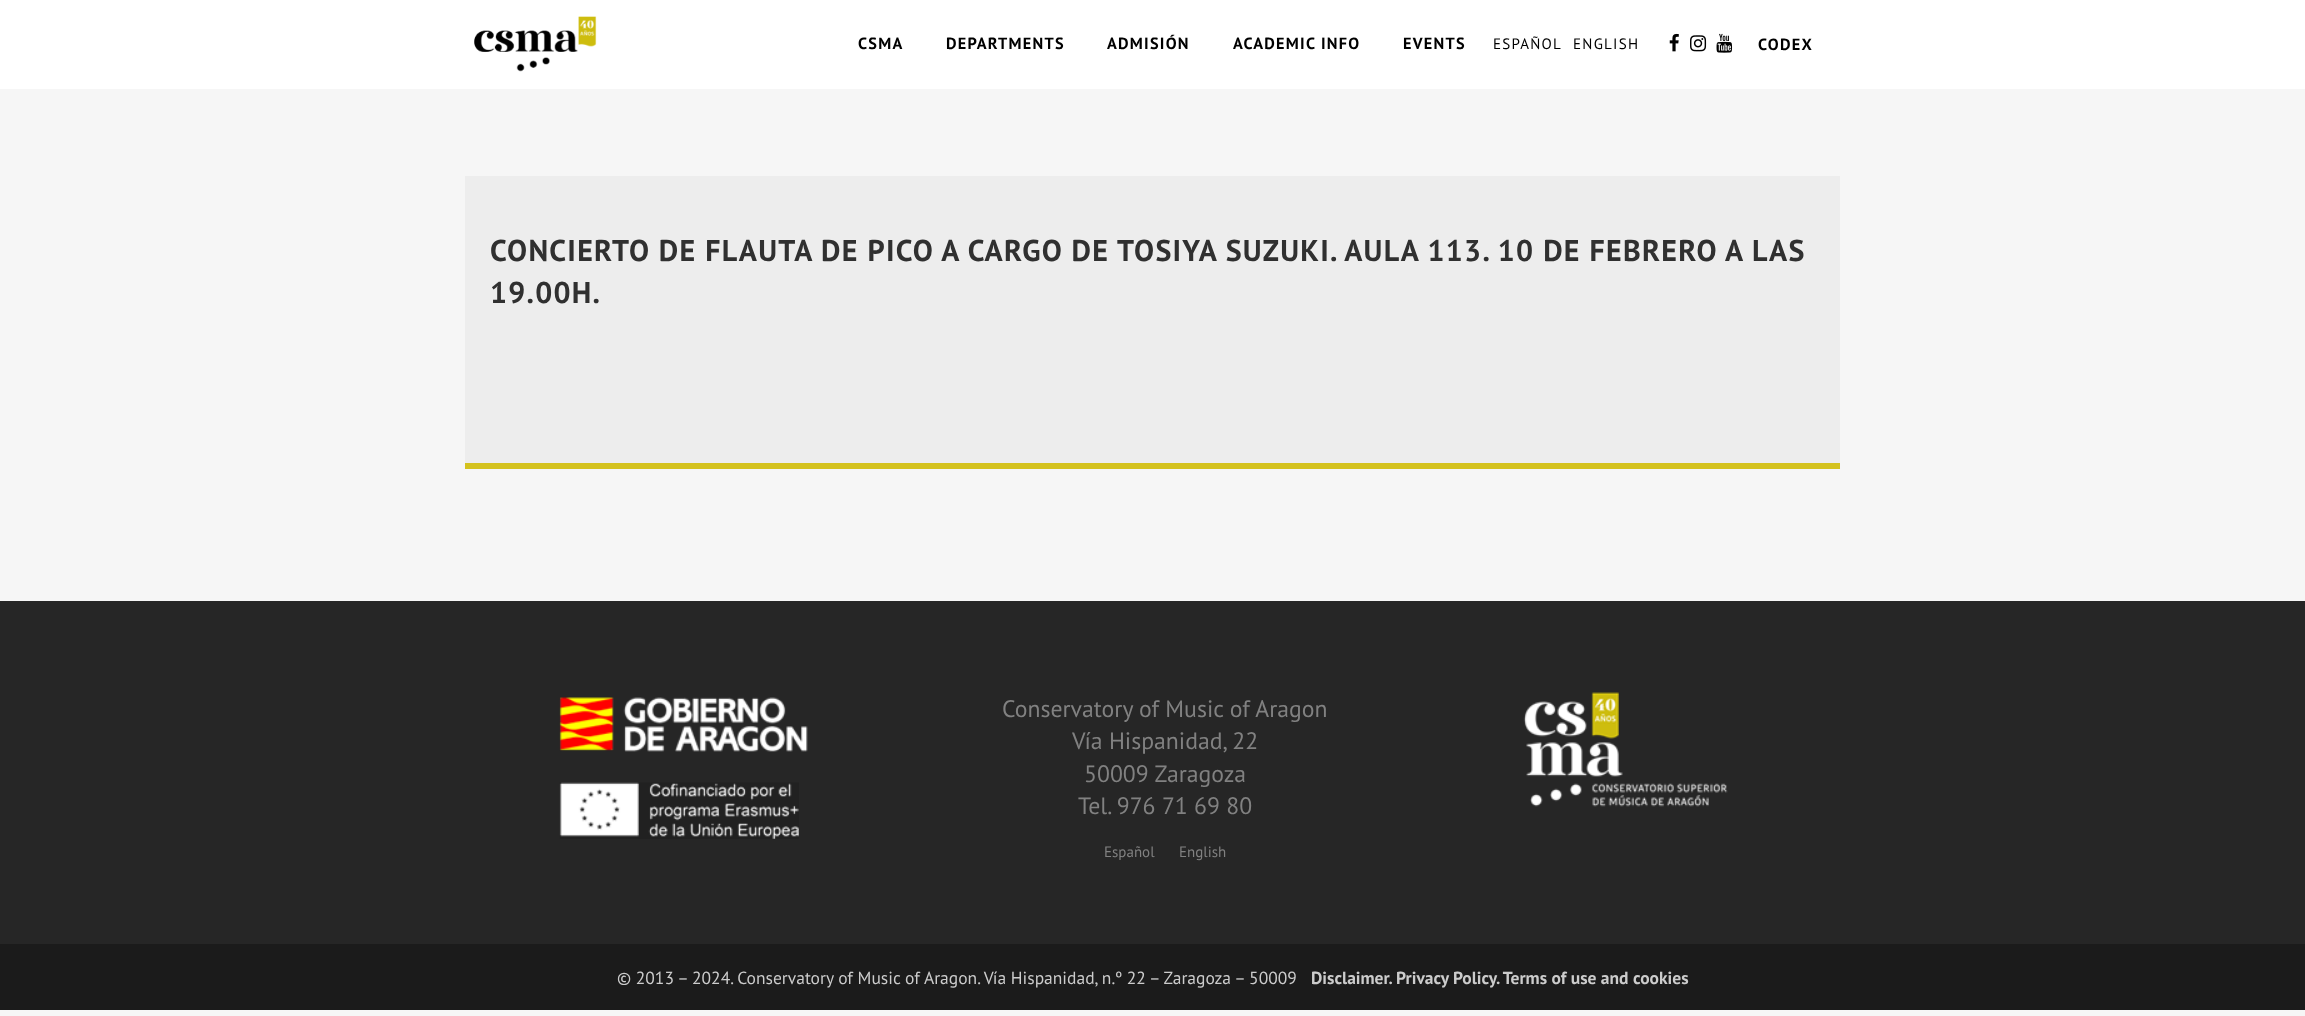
<!DOCTYPE html>
<meta charset="utf-8">
<style>body { margin: 0 } canvas { display: block }</style>
<canvas id="canvas" width="2305" height="1016"></canvas>
<script type="module">
  const canvas = document.getElementById("canvas");
  const ctx = canvas.getContext("2d");
  ctx.miterLimit = 4;
  ctx.fontKerning = "normal";
  async function loadImage(src) {
    const img = new Image();
    img.src = src;
    await img.decode();
    return img;
  }

  ctx.fillStyle = "#f6f6f6";
  ctx.fillRect(0, 0, 2305, 1016);
  ctx.fillStyle = "#ffffff";
  ctx.fillRect(0, 0, 2305, 89);
  ctx.drawImage(await loadImage("img1.png"), 474, 16, 123, 56);
  ctx.letterSpacing = "1.25px";
  ctx.font = "bold 16.25px PT Sans";
  ctx.fillStyle = "#000000";
  ctx.fillText("CSMA", 858, 49);
  ctx.fillText("DEPARTMENTS", 946, 49);
  ctx.fillText("ADMISIÓN", 1107, 49);
  ctx.fillText("ACADEMIC INFO", 1233, 49);
  ctx.fillText("EVENTS", 1403, 49);
  ctx.font = "15px PT Sans";
  ctx.fillText("ESPAÑOL", 1493, 49);
  ctx.fillText("ENGLISH", 1573, 49);
  ctx.drawImage(await loadImage("img2.png"), 1669, 33, 10, 19);
  ctx.drawImage(await loadImage("img3.png"), 1690, 35, 17, 17);
  ctx.drawImage(await loadImage("img4.png"), 1716, 33, 17, 20);
  ctx.font = "bold 16.25px PT Sans";
  ctx.fillText("CODEX", 1758, 50);
  ctx.fillStyle = "#ededed";
  ctx.fillRect(465, 176, 1375, 287);
  ctx.fillStyle = "#d4c21e";
  ctx.fillRect(465, 463, 1375, 6);
  ctx.font = "bold 30px PT Sans";
  ctx.fillStyle = "#303030";
  ctx.fillText("CONCIERTO DE FLAUTA DE PICO A CARGO DE TOSIYA SUZUKI. AULA 113. 10 DE FEBRERO A LAS", 490, 261);
  ctx.fillText("19.00H.", 490, 303);
  ctx.fillStyle = "#262626";
  ctx.fillRect(0, 601, 2305, 343);
  ctx.drawImage(await loadImage("img5.png"), 559, 697, 249, 142);
  ctx.letterSpacing = "0px";
  ctx.font = "23.75px PT Sans";
  ctx.fillStyle = "#818181";
  ctx.fillText("Conservatory of Music of Aragon", 1002, 717);
  ctx.fillText("Vía Hispanidad, 22", 1072, 749);
  ctx.fillText("50009 Zaragoza", 1084, 782);
  ctx.fillText("Tel. 976 71 69 80", 1078, 814);
  ctx.font = "15px PT Sans";
  ctx.fillText("Español", 1104, 857);
  ctx.fillText("English", 1179, 857);
  ctx.drawImage(await loadImage("img6.png"), 1523, 692, 205, 115);
  ctx.fillStyle = "#1b1b1b";
  ctx.fillRect(0, 944, 2305, 66);
  ctx.font = "17.5px PT Sans";
  ctx.fillStyle = "#cccccc";
  ctx.fillText("© 2013 – 2024. Conservatory of Music of Aragon. Vía Hispanidad, n.º 22 – Zaragoza – 50009", 617, 984);
  ctx.font = "bold 17.5px PT Sans";
  ctx.fillText("Disclaimer. Privacy Policy. Terms of use and cookies", 1311, 984);
</script>
